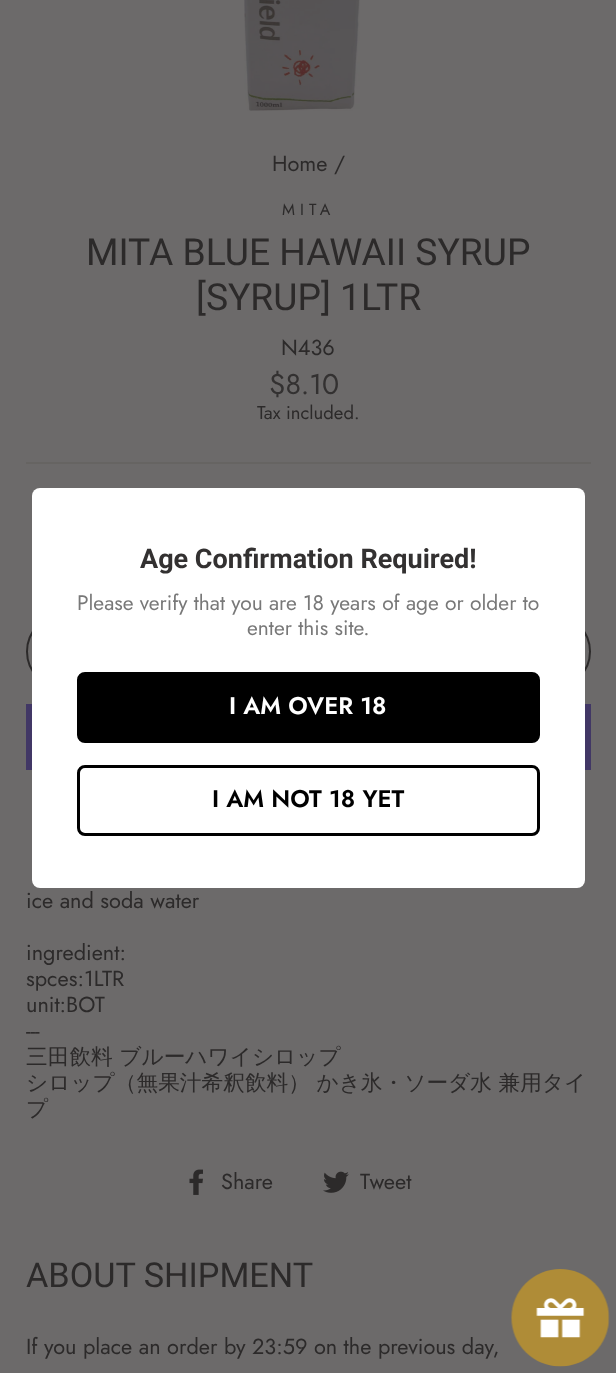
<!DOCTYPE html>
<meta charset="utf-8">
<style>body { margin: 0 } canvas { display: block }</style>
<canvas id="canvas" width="616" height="1373"></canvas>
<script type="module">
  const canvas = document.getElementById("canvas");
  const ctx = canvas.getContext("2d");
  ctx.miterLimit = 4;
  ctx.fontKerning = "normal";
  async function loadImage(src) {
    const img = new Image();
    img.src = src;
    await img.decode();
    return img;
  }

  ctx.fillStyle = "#6c6a6a";
  ctx.fillRect(0, 0, 616, 1373);
  ctx.drawImage(await loadImage("img1.png"), 244, 0, 116, 111);
  ctx.font = "21.7px Jost";
  ctx.fillStyle = "#2c2a2a";
  ctx.fillText("Home /", 272, 171);
  ctx.letterSpacing = "5px";
  ctx.font = "16px Jost";
  ctx.fillText("MITA", 282, 215);
  ctx.letterSpacing = "0px";
  ctx.font = "37.25px Roboto";
  ctx.fillText("MITA BLUE HAWAII SYRUP", 86, 265);
  ctx.fillText("[SYRUP] 1LTR", 196, 310);
  ctx.font = "21.7px Jost";
  ctx.fillText("N436", 281, 355);
  ctx.font = "28.5px Jost";
  ctx.fillStyle = "#333131";
  ctx.fillText("$8.10", 269, 394);
  ctx.font = "18.5px Jost";
  ctx.fillStyle = "#2c2a2a";
  ctx.fillText("Tax included.", 257, 419);
  ctx.fillStyle = "#666462";
  ctx.fillRect(26, 462, 565, 2);
  ctx.beginPath();
  ctx.roundRect(27, 615, 563, 73, 36.5);
  ctx.strokeStyle = "#2c2a2a";
  ctx.lineWidth = 2;
  ctx.stroke();
  ctx.fillStyle = "#413765";
  ctx.fillRect(26, 704, 565, 66);
  ctx.font = "21.7px Jost";
  ctx.fillStyle = "#2c2a2a";
  ctx.fillText("ice and soda water", 26, 908);
  ctx.fillText("ingredient:", 26, 960);
  ctx.fillText("spces:1LTR", 26, 986);
  ctx.fillText("unit:BOT", 26, 1012);
  ctx.fillText("---", 26, 1038);
  ctx.font = "500 21.7px WenQuanYi Zen Hei";
  ctx.fillText("三田飲料 ブルーハワイシロップ", 26, 1064);
  ctx.fillText("シロップ（無果汁希釈飲料） かき氷・ソーダ水 兼用タイ", 26, 1090);
  ctx.fillText("プ", 26, 1116);
  ctx.drawImage(await loadImage("img2.png"), 189, 1169, 14, 26);
  ctx.font = "21.7px Jost";
  ctx.fillText("Share", 221, 1189);
  ctx.drawImage(await loadImage("img3.png"), 323, 1171, 26, 22);
  ctx.fillText("Tweet", 360, 1189);
  ctx.font = "34.25px Roboto";
  ctx.fillText("ABOUT SHIPMENT", 26, 1287);
  ctx.font = "21.7px Jost";
  ctx.fillText("If you place an order by 23:59 on the previous day,", 26, 1354);
  ctx.fillStyle = "#ffffff";
  ctx.beginPath();
  ctx.roundRect(32, 488, 553, 400, 8);
  ctx.fill();
  ctx.font = "bold 27px Roboto";
  ctx.fillStyle = "#333131";
  ctx.fillText("Age Confirmation Required!", 140, 568);
  ctx.font = "21px Jost";
  ctx.fillStyle = "#787878";
  ctx.fillText("Please verify that you are 18 years of age or older to", 77, 610);
  ctx.fillText("enter this site.", 247, 635);
  ctx.fillStyle = "#000000";
  ctx.beginPath();
  ctx.roundRect(78.5, 673.5, 460, 68, 6.5);
  ctx.fill();
  ctx.strokeStyle = "#000000";
  ctx.lineWidth = 3;
  ctx.stroke();
  ctx.font = "600 24px Jost";
  ctx.fillStyle = "#ffffff";
  ctx.fillText("I AM OVER 18", 229, 714);
  ctx.beginPath();
  ctx.roundRect(78.5, 766.5, 460, 68, 6.5);
  ctx.stroke();
  ctx.fillStyle = "#000000";
  ctx.fillText("I AM NOT 18 YET", 212, 807);
  ctx.drawImage(await loadImage("img4.png"), 511, 1269, 99, 98);
</script>
